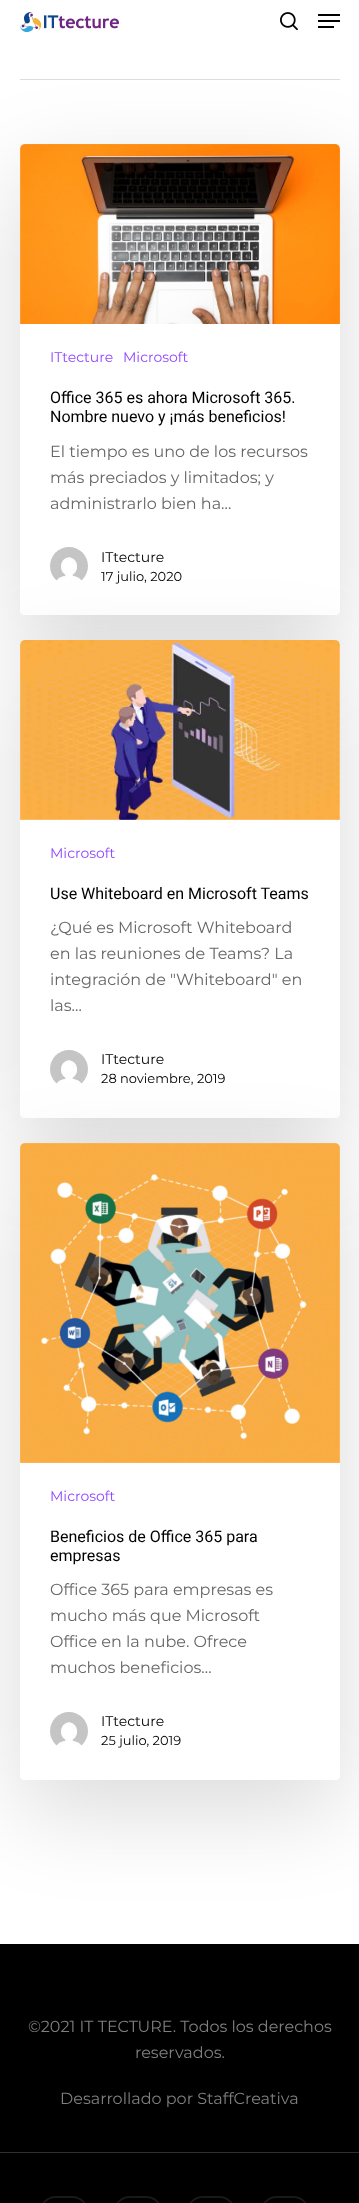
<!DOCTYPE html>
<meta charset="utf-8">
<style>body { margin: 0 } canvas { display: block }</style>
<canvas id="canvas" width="359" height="2203"></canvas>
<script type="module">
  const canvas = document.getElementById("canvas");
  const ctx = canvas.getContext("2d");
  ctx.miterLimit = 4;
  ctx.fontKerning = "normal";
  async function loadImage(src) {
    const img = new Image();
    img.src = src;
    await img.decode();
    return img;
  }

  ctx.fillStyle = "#ffffff";
  ctx.fillRect(0, 0, 359, 2203);
  ctx.drawImage(await loadImage("img1.png"), 20, 12, 99, 20);
  ctx.drawImage(await loadImage("img2.png"), 280, 12, 18, 19);
  ctx.fillStyle = "#000000";
  ctx.fillRect(318, 14, 22, 2);
  ctx.fillRect(318, 26, 16, 2);
  ctx.fillRect(318, 20, 22, 2);
  ctx.save();
  ctx.beginPath();
  ctx.moveTo(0, 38);
  ctx.lineTo(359, 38);
  ctx.lineTo(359, 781);
  ctx.lineTo(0, 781);
  ctx.closePath();
  ctx.moveTo(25, 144);
  ctx.lineTo(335, 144);
  ctx.bezierCurveTo(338, 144, 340, 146, 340, 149);
  ctx.lineTo(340, 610);
  ctx.bezierCurveTo(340, 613, 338, 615, 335, 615);
  ctx.lineTo(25, 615);
  ctx.bezierCurveTo(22, 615, 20, 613, 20, 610);
  ctx.lineTo(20, 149);
  ctx.bezierCurveTo(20, 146, 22, 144, 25, 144);
  ctx.closePath();
  ctx.clip("evenodd");
  ctx.fillStyle = "rgba(0, 0, 0, 0.14)";
  ctx.filter = "blur(45px)";
  ctx.beginPath();
  ctx.roundRect(20, 174, 320, 471, 5);
  ctx.fill();
  ctx.filter = "none";
  ctx.restore();
  ctx.fillStyle = "#dddddd";
  ctx.fillRect(20, 79, 320, 1);
  ctx.drawImage(await loadImage("img3.png"), 20, 144, 320, 180);
  ctx.font = "14px Montserrat";
  ctx.fillStyle = "#9246ff";
  ctx.fillText("ITtecture", 50, 362);
  ctx.fillText("Microsoft", 123, 362);
  ctx.fillStyle = "#ffffff";
  ctx.beginPath();
  ctx.roundRect(20, 378, 320, 237, [0, 0, 5, 5]);
  ctx.fill();
  ctx.font = "16px Roboto";
  ctx.fillStyle = "#000000";
  ctx.fillText("Office 365 es ahora Microsoft 365.", 50, 403);
  ctx.fillText("Nombre nuevo y ¡más beneficios!", 50, 422);
  ctx.font = "16px Montserrat";
  ctx.fillStyle = "#676767";
  ctx.fillText("El tiempo es uno de los recursos", 50, 457);
  ctx.fillText("más preciados y limitados; y", 50, 483);
  ctx.fillText("administrarlo bien ha…", 50, 509);
  ctx.drawImage(await loadImage("img4.png"), 50, 547, 38, 35);
  ctx.font = "14px Montserrat";
  ctx.fillStyle = "#000000";
  ctx.fillText("ITtecture", 101, 562);
  ctx.font = "13px Montserrat";
  ctx.fillText("17 julio, 2020", 101, 581);
  ctx.save();
  ctx.beginPath();
  ctx.moveTo(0, 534);
  ctx.lineTo(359, 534);
  ctx.lineTo(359, 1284);
  ctx.lineTo(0, 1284);
  ctx.closePath();
  ctx.moveTo(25, 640);
  ctx.lineTo(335, 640);
  ctx.bezierCurveTo(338, 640, 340, 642, 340, 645);
  ctx.lineTo(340, 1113);
  ctx.bezierCurveTo(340, 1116, 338, 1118, 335, 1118);
  ctx.lineTo(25, 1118);
  ctx.bezierCurveTo(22, 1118, 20, 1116, 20, 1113);
  ctx.lineTo(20, 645);
  ctx.bezierCurveTo(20, 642, 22, 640, 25, 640);
  ctx.closePath();
  ctx.clip("evenodd");
  ctx.fillStyle = "rgba(0, 0, 0, 0.14)";
  ctx.filter = "blur(45px)";
  ctx.beginPath();
  ctx.roundRect(20, 670, 320, 478, 5);
  ctx.fill();
  ctx.filter = "none";
  ctx.restore();
  ctx.drawImage(await loadImage("img5.png"), 20, 640, 320, 180);
  ctx.font = "14px Montserrat";
  ctx.fillStyle = "#9246ff";
  ctx.fillText("Microsoft", 50, 858);
  ctx.fillStyle = "#ffffff";
  ctx.beginPath();
  ctx.roundRect(20, 874, 320, 244, [0, 0, 5, 5]);
  ctx.fill();
  ctx.font = "16px Roboto";
  ctx.fillStyle = "#000000";
  ctx.fillText("Use Whiteboard en Microsoft Teams", 50, 899);
  ctx.font = "16px Montserrat";
  ctx.fillStyle = "#676767";
  ctx.fillText("¿Qué es Microsoft Whiteboard", 50, 933);
  ctx.fillText("en las reuniones de Teams? La", 50, 959);
  ctx.fillText("integración de \"Whiteboard\" en", 50, 985);
  ctx.fillText("las…", 50, 1011);
  ctx.drawImage(await loadImage("img4.png"), 50, 1050, 38, 35);
  ctx.font = "14px Montserrat";
  ctx.fillStyle = "#000000";
  ctx.fillText("ITtecture", 101, 1064);
  ctx.font = "13px Montserrat";
  ctx.fillText("28 noviembre, 2019", 101, 1083);
  ctx.fillRect(0, 1944, 359, 259);
  ctx.save();
  ctx.beginPath();
  ctx.moveTo(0, 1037);
  ctx.lineTo(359, 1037);
  ctx.lineTo(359, 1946);
  ctx.lineTo(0, 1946);
  ctx.closePath();
  ctx.moveTo(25, 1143);
  ctx.lineTo(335, 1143);
  ctx.bezierCurveTo(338, 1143, 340, 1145, 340, 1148);
  ctx.lineTo(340, 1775);
  ctx.bezierCurveTo(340, 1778, 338, 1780, 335, 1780);
  ctx.lineTo(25, 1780);
  ctx.bezierCurveTo(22, 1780, 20, 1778, 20, 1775);
  ctx.lineTo(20, 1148);
  ctx.bezierCurveTo(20, 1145, 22, 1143, 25, 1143);
  ctx.closePath();
  ctx.clip("evenodd");
  ctx.fillStyle = "rgba(0, 0, 0, 0.14)";
  ctx.filter = "blur(45px)";
  ctx.beginPath();
  ctx.roundRect(20, 1173, 320, 637, 5);
  ctx.fill();
  ctx.filter = "none";
  ctx.restore();
  ctx.drawImage(await loadImage("img6.png"), 20, 1143, 320, 320);
  ctx.font = "14px Montserrat";
  ctx.fillStyle = "#9246ff";
  ctx.fillText("Microsoft", 50, 1501);
  ctx.fillStyle = "#ffffff";
  ctx.beginPath();
  ctx.roundRect(20, 1517, 320, 263, [0, 0, 5, 5]);
  ctx.fill();
  ctx.font = "16px Roboto";
  ctx.fillStyle = "#000000";
  ctx.fillText("Beneficios de Office 365 para", 50, 1542);
  ctx.fillText("empresas", 50, 1561);
  ctx.font = "16px Montserrat";
  ctx.fillStyle = "#676767";
  ctx.fillText("Office 365 para empresas es", 50, 1595);
  ctx.fillText("mucho más que Microsoft", 50, 1621);
  ctx.fillText("Office en la nube. Ofrece", 50, 1647);
  ctx.fillText("muchos beneficios…", 50, 1673);
  ctx.drawImage(await loadImage("img4.png"), 50, 1712, 38, 35);
  ctx.font = "14px Montserrat";
  ctx.fillStyle = "#000000";
  ctx.fillText("ITtecture", 101, 1726);
  ctx.font = "13px Montserrat";
  ctx.fillText("25 julio, 2019", 101, 1745);
  ctx.font = "16px Montserrat";
  ctx.fillStyle = "#7f7f7f";
  ctx.fillText("©2021 IT TECTURE. Todos los derechos", 28, 2032);
  ctx.fillText("reservados.", 135, 2058);
  ctx.fillText("Desarrollado por StaffCreativa", 60, 2104);
  ctx.fillStyle = "#2e2e2e";
  ctx.fillRect(0, 2152, 359, 1);
  ctx.beginPath();
  ctx.roundRect(40, 2197, 48, 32, 24);
  ctx.strokeStyle = "#191919";
  ctx.lineWidth = 2;
  ctx.stroke();
  ctx.beginPath();
  ctx.roundRect(114, 2197, 48, 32, 24);
  ctx.stroke();
  ctx.beginPath();
  ctx.roundRect(187, 2197, 48, 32, 24);
  ctx.stroke();
  ctx.beginPath();
  ctx.roundRect(261, 2197, 48, 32, 24);
  ctx.stroke();
</script>
